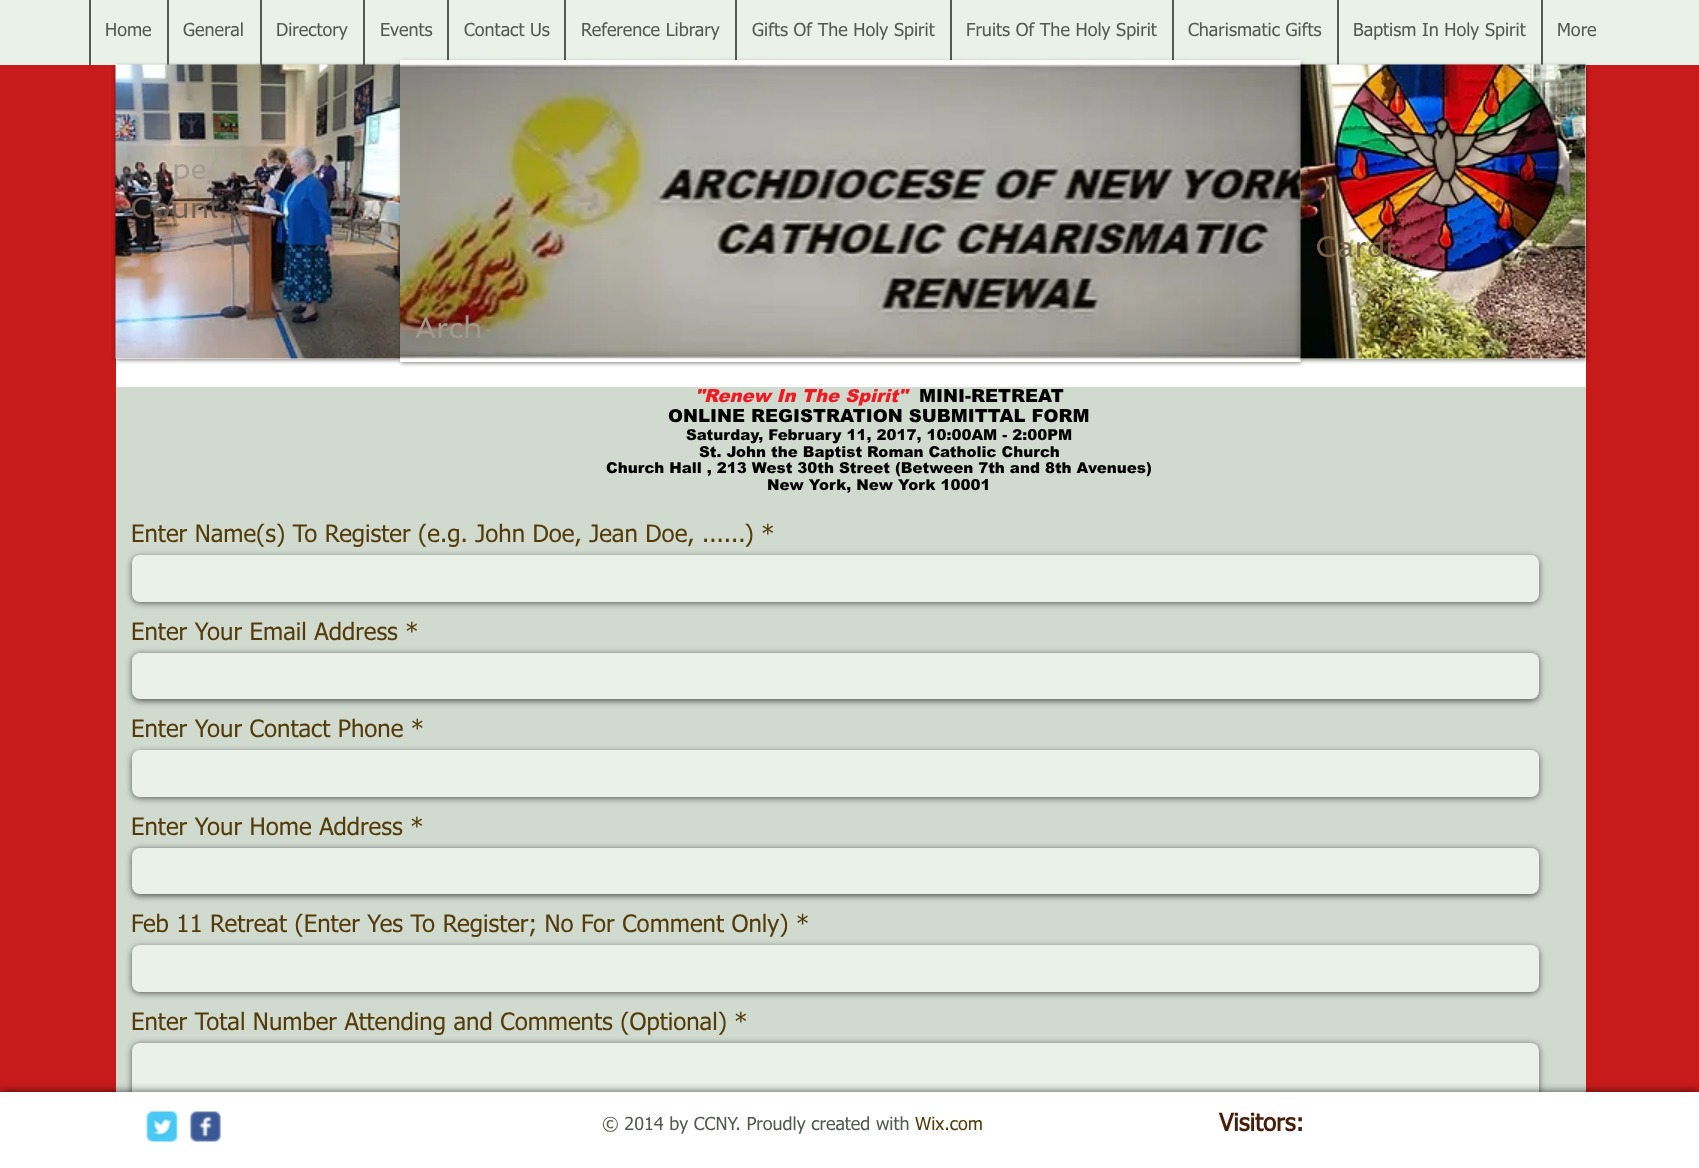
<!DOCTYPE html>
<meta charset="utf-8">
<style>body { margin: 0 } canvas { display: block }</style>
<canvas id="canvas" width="1699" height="1168"></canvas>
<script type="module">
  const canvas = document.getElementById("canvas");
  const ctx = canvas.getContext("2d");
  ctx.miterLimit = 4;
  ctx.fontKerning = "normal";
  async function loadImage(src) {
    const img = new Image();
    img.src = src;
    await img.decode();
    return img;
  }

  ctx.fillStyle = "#c71a1a";
  ctx.fillRect(0, 0, 1699, 1168);
  ctx.fillStyle = "#eaf1e9";
  ctx.fillRect(0, 0, 1699, 65);
  ctx.fillStyle = "#525a51";
  ctx.fillRect(89, 0, 2, 65);
  ctx.font = "18px tahoma";
  ctx.fillText("Home", 105, 36);
  ctx.fillRect(167, 0, 2, 65);
  ctx.fillText("General", 183, 36);
  ctx.fillRect(260, 0, 2, 65);
  ctx.fillText("Directory", 276, 36);
  ctx.fillRect(363, 0, 2, 65);
  ctx.fillText("Events", 380, 36);
  ctx.fillRect(447, 0, 2, 65);
  ctx.fillText("Contact Us", 464, 36);
  ctx.fillRect(564, 0, 2, 65);
  ctx.fillText("Reference Library", 581, 36);
  ctx.fillRect(735, 0, 2, 65);
  ctx.fillText("Gifts Of The Holy Spirit", 752, 36);
  ctx.fillRect(950, 0, 2, 65);
  ctx.fillText("Fruits Of The Holy Spirit", 966, 36);
  ctx.fillRect(1172, 0, 2, 65);
  ctx.fillText("Charismatic Gifts", 1188, 36);
  ctx.fillRect(1337, 0, 2, 65);
  ctx.fillText("Baptism In Holy Spirit", 1353, 36);
  ctx.fillRect(1541, 0, 2, 65);
  ctx.fillText("More", 1557, 36);
  ctx.fillStyle = "#ffffff";
  ctx.fillRect(116, 359, 1470, 28);
  ctx.fillStyle = "rgba(0, 0, 0, 0.5)";
  ctx.filter = "blur(2px)";
  ctx.beginPath();
  ctx.rect(116, 66, 285, 294);
  ctx.fill();
  ctx.filter = "none";
  ctx.fillStyle = "#fff3de";
  ctx.fillRect(116, 358, 284, 1);
  ctx.drawImage(await loadImage("img1.png"), 115, 64, 285, 295);
  ctx.font = "30px Spinnaker";
  ctx.fillStyle = "#a39a8f";
  ctx.fillText("pe", 172, 179);
  ctx.fillStyle = "#715f54";
  ctx.fillText("Count...", 130, 218);
  ctx.fillStyle = "rgba(0, 0, 0, 0.5)";
  ctx.filter = "blur(2px)";
  ctx.beginPath();
  ctx.rect(401, 62, 900, 301);
  ctx.fill();
  ctx.filter = "none";
  ctx.fillStyle = "#fff3de";
  ctx.fillRect(1299, 60, 2, 302);
  ctx.drawImage(await loadImage("img2.png"), 400, 60, 901, 302);
  ctx.fillStyle = "#a39a8f";
  ctx.fillText("Arch", 415, 338);
  ctx.fillStyle = "rgba(0, 0, 0, 0.5)";
  ctx.filter = "blur(2px)";
  ctx.beginPath();
  ctx.rect(1301, 66, 285, 294);
  ctx.fill();
  ctx.filter = "none";
  ctx.fillStyle = "#fff3de";
  ctx.fillRect(1301, 65, 285, 294);
  ctx.drawImage(await loadImage("img3.png"), 1300, 64, 286, 295);
  ctx.fillStyle = "#7a6549";
  ctx.fillText("Cardi...", 1315, 257);
  ctx.font = "18px Liberation Sans";
  ctx.fillStyle = "#997667";
  ctx.fillText("1/24", 1535, 339);
  ctx.fillStyle = "#d0dacf";
  ctx.fillRect(116, 387, 1470, 705);
  ctx.font = "italic 900 18px arial";
  ctx.fillStyle = "#ed1c24";
  ctx.fillText("\"Renew In The Spirit\"", 695, 402);
  ctx.font = "900 18px arial";
  ctx.fillStyle = "#000000";
  ctx.fillText("MINI-RETREAT", 919, 402);
  ctx.fillText("ONLINE REGISTRATION SUBMITTAL FORM", 668, 422);
  ctx.font = "900 15px arial";
  ctx.fillText("Saturday, February 11, 2017, 10:00AM - 2:00PM", 686, 440);
  ctx.fillText("St. John the Baptist Roman Catholic Church", 699, 457);
  ctx.fillText("Church Hall , 213 West 30th Street (Between 7th and 8th Avenues)", 606, 473);
  ctx.fillText("New York, New York 10001", 767, 490);
  ctx.font = "24px tahoma";
  ctx.fillStyle = "#543c0a";
  ctx.fillText("Enter Name(s) To Register (e.g. John Doe, Jean Doe, ......) *", 131, 542);
  ctx.fillStyle = "rgba(0, 0, 0, 0.6)";
  ctx.filter = "blur(3px)";
  ctx.beginPath();
  ctx.roundRect(132, 557, 1407, 46, 8);
  ctx.fill();
  ctx.filter = "none";
  ctx.fillStyle = "#eaf1e9";
  ctx.beginPath();
  ctx.roundRect(132, 555, 1407, 47, 8);
  ctx.fill();
  ctx.fillStyle = "#543c0a";
  ctx.fillText("Enter Your Email Address *", 131, 640);
  ctx.fillStyle = "rgba(0, 0, 0, 0.6)";
  ctx.filter = "blur(3px)";
  ctx.beginPath();
  ctx.roundRect(132, 654, 1407, 47, 8);
  ctx.fill();
  ctx.filter = "none";
  ctx.fillStyle = "#eaf1e9";
  ctx.beginPath();
  ctx.roundRect(132, 653, 1407, 46, 8);
  ctx.fill();
  ctx.fillStyle = "#543c0a";
  ctx.fillText("Enter Your Contact Phone *", 131, 737);
  ctx.fillStyle = "rgba(0, 0, 0, 0.6)";
  ctx.filter = "blur(3px)";
  ctx.beginPath();
  ctx.roundRect(132, 752, 1407, 46, 8);
  ctx.fill();
  ctx.filter = "none";
  ctx.fillStyle = "#eaf1e9";
  ctx.beginPath();
  ctx.roundRect(132, 750, 1407, 47, 8);
  ctx.fill();
  ctx.fillStyle = "#543c0a";
  ctx.fillText("Enter Your Home Address *", 131, 835);
  ctx.fillStyle = "rgba(0, 0, 0, 0.6)";
  ctx.filter = "blur(3px)";
  ctx.beginPath();
  ctx.roundRect(132, 849, 1407, 47, 8);
  ctx.fill();
  ctx.filter = "none";
  ctx.fillStyle = "#eaf1e9";
  ctx.beginPath();
  ctx.roundRect(132, 848, 1407, 46, 8);
  ctx.fill();
  ctx.fillStyle = "#543c0a";
  ctx.fillText("Feb 11 Retreat (Enter Yes To Register; No For Comment Only) *", 131, 932);
  ctx.fillStyle = "rgba(0, 0, 0, 0.6)";
  ctx.filter = "blur(3px)";
  ctx.beginPath();
  ctx.roundRect(132, 947, 1407, 46, 8);
  ctx.fill();
  ctx.filter = "none";
  ctx.fillStyle = "#eaf1e9";
  ctx.beginPath();
  ctx.roundRect(132, 945, 1407, 47, 8);
  ctx.fill();
  ctx.fillStyle = "#543c0a";
  ctx.fillText("Enter Total Number Attending and Comments (Optional) *", 131, 1030);
  ctx.fillStyle = "rgba(0, 0, 0, 0.6)";
  ctx.filter = "blur(3px)";
  ctx.beginPath();
  ctx.roundRect(132, 1044, 1407, 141, 8);
  ctx.fill();
  ctx.filter = "none";
  ctx.fillStyle = "#eaf1e9";
  ctx.beginPath();
  ctx.roundRect(132, 1043, 1407, 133, 8);
  ctx.fill();
  ctx.fillStyle = "rgba(0, 0, 0, 0.7)";
  ctx.filter = "blur(4px)";
  ctx.beginPath();
  ctx.rect(0, 1092, 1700, 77);
  ctx.fill();
  ctx.filter = "none";
  ctx.fillStyle = "#ffffff";
  ctx.fillRect(0, 1092, 1699, 76);
  ctx.drawImage(await loadImage("img4.png"), 146, 1111, 32, 31);
  ctx.drawImage(await loadImage("img5.png"), 190, 1111, 31, 31);
  ctx.font = "18px tahoma";
  ctx.fillStyle = "#525a51";
  ctx.fillText("© 2014 by CCNY. Proudly created with", 602, 1130);
  ctx.fillStyle = "#543c0a";
  ctx.fillText("Wix.com", 915, 1130);
  ctx.font = "bold 24px tahoma";
  ctx.fillStyle = "#461e09";
  ctx.fillText("Visitors:", 1219, 1131);
</script>
